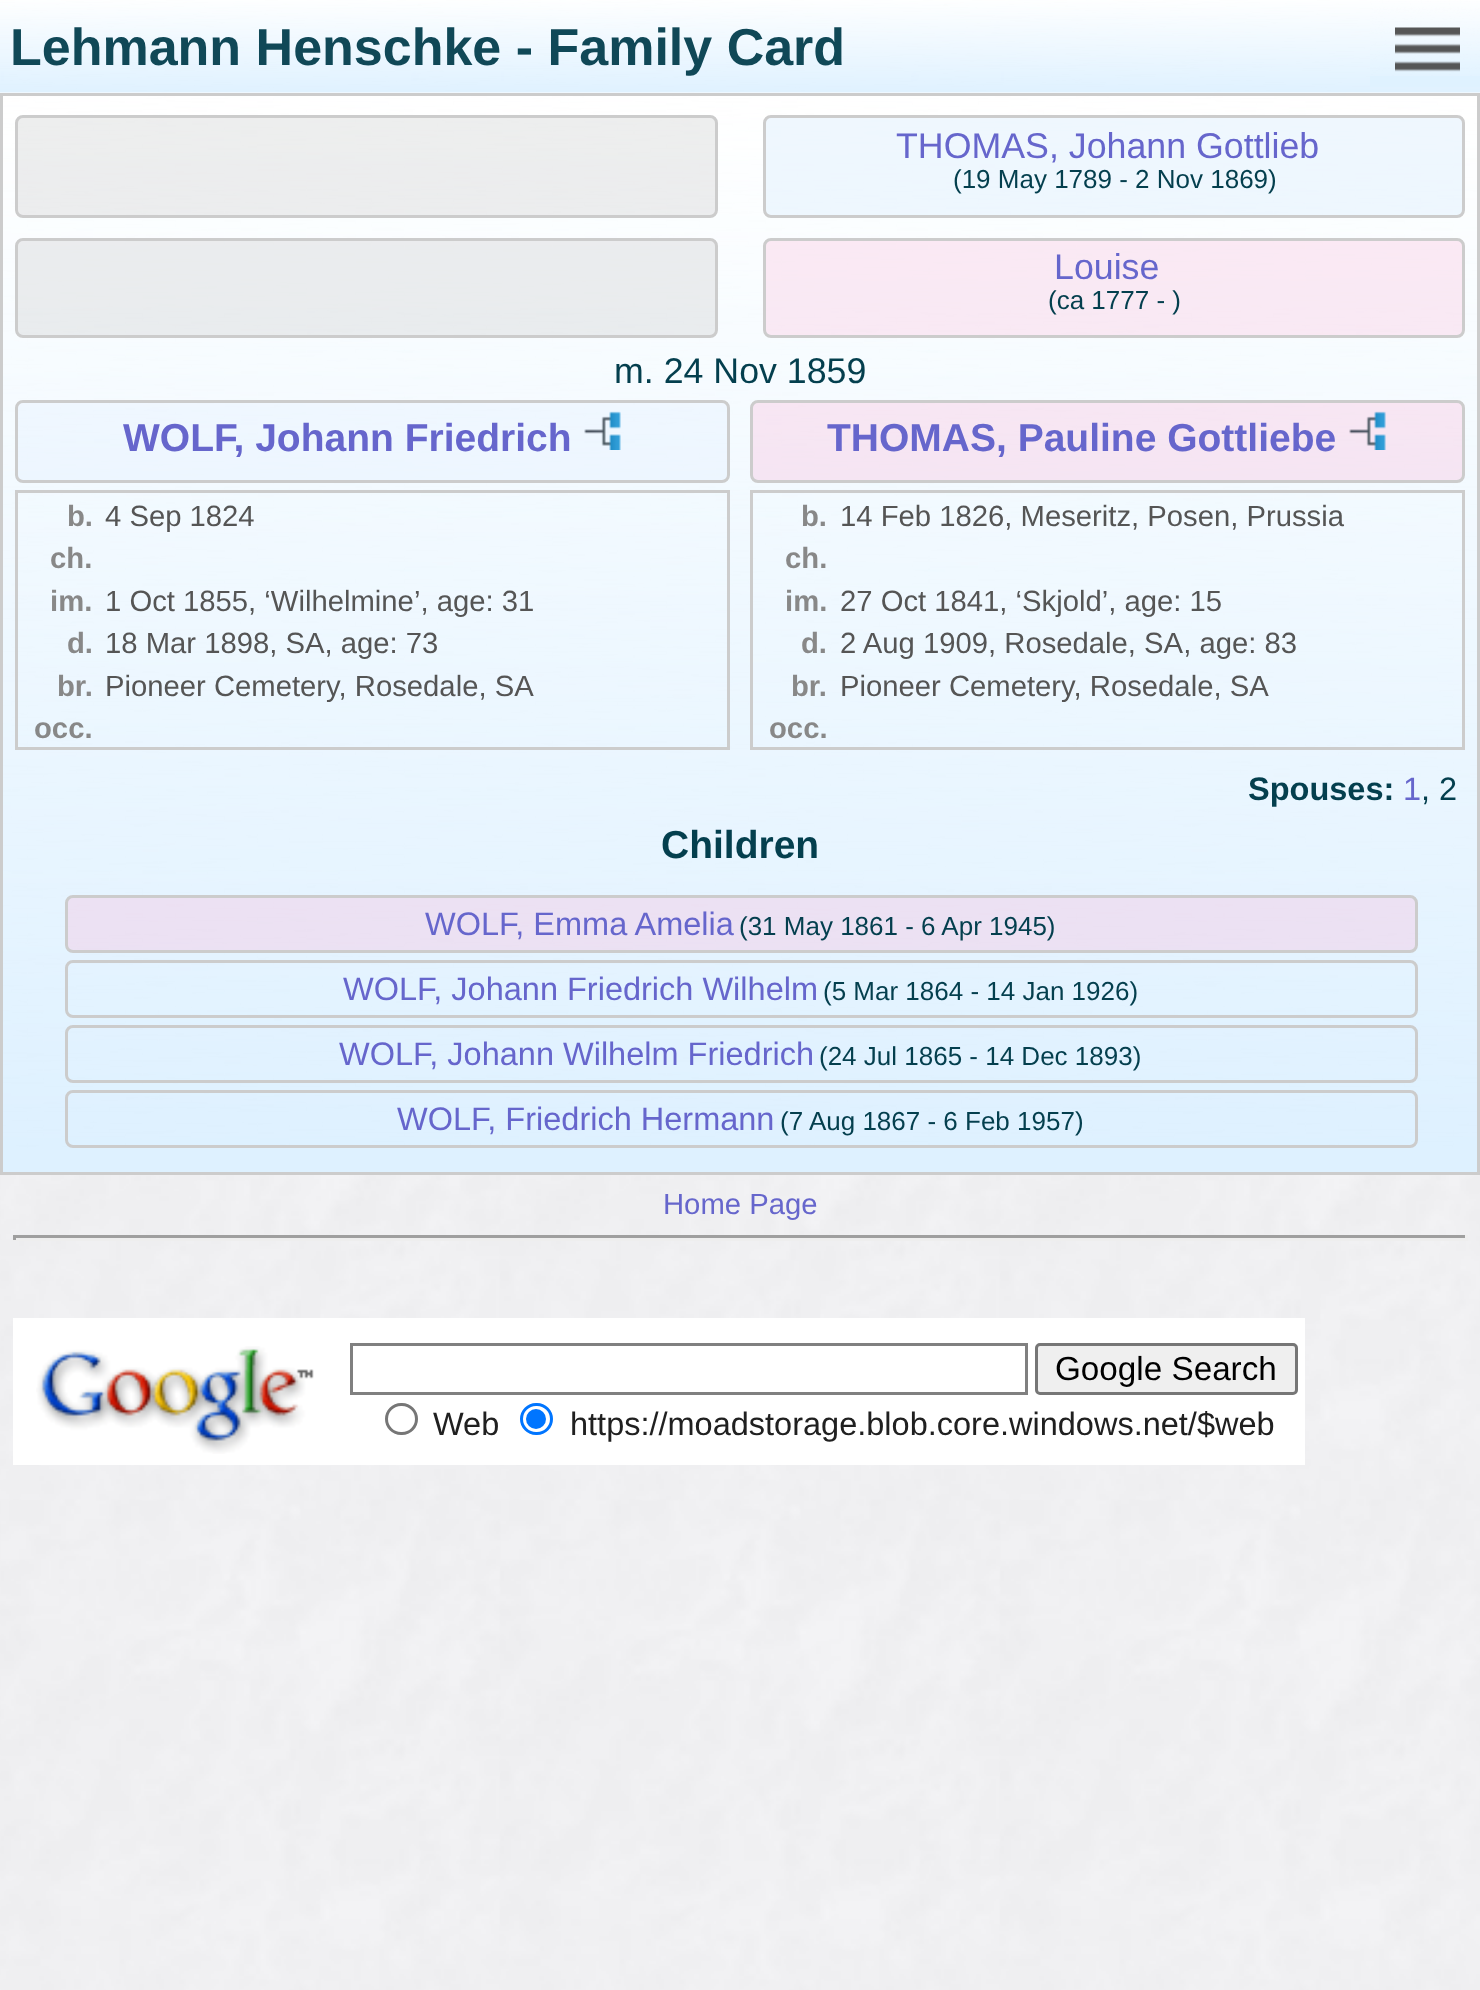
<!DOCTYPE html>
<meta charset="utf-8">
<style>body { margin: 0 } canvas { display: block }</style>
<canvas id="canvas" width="1480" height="1990"></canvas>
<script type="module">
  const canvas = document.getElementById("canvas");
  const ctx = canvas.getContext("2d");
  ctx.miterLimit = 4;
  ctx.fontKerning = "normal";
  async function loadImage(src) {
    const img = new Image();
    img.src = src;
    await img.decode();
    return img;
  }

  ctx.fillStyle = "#ffffff";
  ctx.fillRect(0, 0, 1480, 1990);
  ctx.drawImage(await loadImage("img1.png"), 0, 0, 1480, 1990);
  ctx.fillStyle = "rgba(222, 241, 255, 0.95)";
  ctx.fillRect(0, 0, 1480, 93);
  ctx.drawImage(await loadImage("img2.png"), 0, 0, 1480, 93);
  ctx.font = "bold 52px Liberation Sans";
  ctx.fillStyle = "#104857";
  ctx.fillText("Lehmann Henschke - Family Card", 10, 65);
  ctx.fillStyle = "rgba(222, 241, 255, 0.95)";
  ctx.fillRect(1370, 0, 110, 87);
  ctx.drawImage(await loadImage("img3.png"), 1370, 0, 110, 76);
  ctx.drawImage(await loadImage("img4.png"), 1395, 27, 65, 45);
  ctx.fillStyle = "#def1ff";
  ctx.fillRect(3, 96, 1474, 1076);
  ctx.drawImage(await loadImage("img5.png"), 3, 96, 1474, 1052);
  ctx.strokeStyle = "#cccccc";
  ctx.lineWidth = 3;
  ctx.strokeRect(1.5, 94.5, 1477, 1079);
  ctx.fillStyle = "rgba(200, 200, 200, 0.3)";
  ctx.beginPath();
  ctx.roundRect(16.5, 116.5, 700, 100, 6.5);
  ctx.fill();
  ctx.stroke();
  ctx.fillStyle = "rgba(224, 239, 254, 0.51)";
  ctx.beginPath();
  ctx.roundRect(764.5, 116.5, 699, 100, 6.5);
  ctx.fill();
  ctx.stroke();
  ctx.font = "35.75px Liberation Sans";
  ctx.fillStyle = "#6666cc";
  ctx.fillText("THOMAS, Johann Gottlieb", 896, 158);
  ctx.font = "26px Liberation Sans";
  ctx.fillStyle = "#043f4e";
  ctx.fillText("(19 May 1789 - 2 Nov 1869)", 953, 188);
  ctx.fillStyle = "rgba(200, 200, 200, 0.3)";
  ctx.beginPath();
  ctx.roundRect(16.5, 239.5, 700, 97, 6.5);
  ctx.fill();
  ctx.stroke();
  ctx.fillStyle = "rgba(252, 183, 214, 0.28)";
  ctx.beginPath();
  ctx.roundRect(764.5, 239.5, 699, 97, 6.5);
  ctx.fill();
  ctx.stroke();
  ctx.font = "35.75px Liberation Sans";
  ctx.fillStyle = "#6666cc";
  ctx.fillText("Louise", 1054, 279);
  ctx.font = "26px Liberation Sans";
  ctx.fillStyle = "#043f4e";
  ctx.fillText("(ca 1777 - )", 1048, 309);
  ctx.font = "35.75px Liberation Sans";
  ctx.fillText("m. 24 Nov 1859", 614, 383);
  ctx.fillStyle = "rgba(224, 239, 254, 0.3)";
  ctx.beginPath();
  ctx.roundRect(16.5, 401.5, 712, 80, 6.5);
  ctx.fill();
  ctx.stroke();
  ctx.font = "bold 39px Liberation Sans";
  ctx.fillStyle = "#6666cc";
  ctx.fillText("WOLF, Johann Friedrich", 123, 451);
  ctx.drawImage(await loadImage("img6.png"), 584, 411, 37, 39);
  ctx.fillStyle = "rgba(252, 183, 214, 0.3)";
  ctx.beginPath();
  ctx.roundRect(751.5, 401.5, 712, 80, 6.5);
  ctx.fill();
  ctx.stroke();
  ctx.fillStyle = "#6666cc";
  ctx.fillText("THOMAS, Pauline Gottliebe", 827, 451);
  ctx.drawImage(await loadImage("img7.png"), 1349, 411, 37, 39);
  ctx.strokeRect(16.5, 491.5, 712, 257);
  ctx.font = "bold 29.25px Liberation Sans";
  ctx.fillStyle = "#888888";
  ctx.fillText("b.", 67, 526);
  ctx.font = "29.25px Liberation Sans";
  ctx.fillStyle = "#555555";
  ctx.fillText("4 Sep 1824", 105, 526);
  ctx.font = "bold 29.25px Liberation Sans";
  ctx.fillStyle = "#888888";
  ctx.fillText("ch.", 50, 568);
  ctx.fillText("im.", 50, 611);
  ctx.font = "29.25px Liberation Sans";
  ctx.fillStyle = "#555555";
  ctx.fillText("1 Oct 1855, ‘Wilhelmine’, age: 31", 105, 611);
  ctx.font = "bold 29.25px Liberation Sans";
  ctx.fillStyle = "#888888";
  ctx.fillText("d.", 67, 653);
  ctx.font = "29.25px Liberation Sans";
  ctx.fillStyle = "#555555";
  ctx.fillText("18 Mar 1898, SA, age: 73", 105, 653);
  ctx.font = "bold 29.25px Liberation Sans";
  ctx.fillStyle = "#888888";
  ctx.fillText("br.", 57, 696);
  ctx.font = "29.25px Liberation Sans";
  ctx.fillStyle = "#555555";
  ctx.fillText("Pioneer Cemetery, Rosedale, SA", 105, 696);
  ctx.font = "bold 29.25px Liberation Sans";
  ctx.fillStyle = "#888888";
  ctx.fillText("occ.", 34, 738);
  ctx.strokeRect(751.5, 491.5, 712, 257);
  ctx.fillText("b.", 801, 526);
  ctx.font = "29.25px Liberation Sans";
  ctx.fillStyle = "#555555";
  ctx.fillText("14 Feb 1826, Meseritz, Posen, Prussia", 840, 526);
  ctx.font = "bold 29.25px Liberation Sans";
  ctx.fillStyle = "#888888";
  ctx.fillText("ch.", 785, 568);
  ctx.fillText("im.", 785, 611);
  ctx.font = "29.25px Liberation Sans";
  ctx.fillStyle = "#555555";
  ctx.fillText("27 Oct 1841, ‘Skjold’, age: 15", 840, 611);
  ctx.font = "bold 29.25px Liberation Sans";
  ctx.fillStyle = "#888888";
  ctx.fillText("d.", 801, 653);
  ctx.font = "29.25px Liberation Sans";
  ctx.fillStyle = "#555555";
  ctx.fillText("2 Aug 1909, Rosedale, SA, age: 83", 840, 653);
  ctx.font = "bold 29.25px Liberation Sans";
  ctx.fillStyle = "#888888";
  ctx.fillText("br.", 791, 696);
  ctx.font = "29.25px Liberation Sans";
  ctx.fillStyle = "#555555";
  ctx.fillText("Pioneer Cemetery, Rosedale, SA", 840, 696);
  ctx.font = "bold 29.25px Liberation Sans";
  ctx.fillStyle = "#888888";
  ctx.fillText("occ.", 769, 738);
  ctx.font = "bold 32.5px Liberation Sans";
  ctx.fillStyle = "#043f4e";
  ctx.fillText("Spouses:", 1248, 800);
  ctx.font = "32.5px Liberation Sans";
  ctx.fillStyle = "#6666cc";
  ctx.fillText("1", 1403, 800);
  ctx.fillStyle = "#043f4e";
  ctx.fillText(", 2", 1421, 800);
  ctx.font = "bold 39px Liberation Sans";
  ctx.fillText("Children", 661, 858);
  ctx.fillStyle = "rgba(252, 183, 214, 0.3)";
  ctx.beginPath();
  ctx.roundRect(66.5, 896.5, 1350, 55, 6.5);
  ctx.fill();
  ctx.stroke();
  ctx.font = "32.5px Liberation Sans";
  ctx.fillStyle = "#6666cc";
  ctx.fillText("WOLF, Emma Amelia", 425, 935);
  ctx.font = "26px Liberation Sans";
  ctx.fillStyle = "#043f4e";
  ctx.fillText("(31 May 1861 - 6 Apr 1945)", 739, 935);
  ctx.beginPath();
  ctx.roundRect(66.5, 961.5, 1350, 55, 6.5);
  ctx.stroke();
  ctx.font = "32.5px Liberation Sans";
  ctx.fillStyle = "#6666cc";
  ctx.fillText("WOLF, Johann Friedrich Wilhelm", 343, 1000);
  ctx.font = "26px Liberation Sans";
  ctx.fillStyle = "#043f4e";
  ctx.fillText("(5 Mar 1864 - 14 Jan 1926)", 823, 1000);
  ctx.beginPath();
  ctx.roundRect(66.5, 1026.5, 1350, 55, 6.5);
  ctx.stroke();
  ctx.font = "32.5px Liberation Sans";
  ctx.fillStyle = "#6666cc";
  ctx.fillText("WOLF, Johann Wilhelm Friedrich", 339, 1065);
  ctx.font = "26px Liberation Sans";
  ctx.fillStyle = "#043f4e";
  ctx.fillText("(24 Jul 1865 - 14 Dec 1893)", 819, 1065);
  ctx.beginPath();
  ctx.roundRect(66.5, 1091.5, 1350, 55, 6.5);
  ctx.stroke();
  ctx.font = "32.5px Liberation Sans";
  ctx.fillStyle = "#6666cc";
  ctx.fillText("WOLF, Friedrich Hermann", 397, 1130);
  ctx.font = "26px Liberation Sans";
  ctx.fillStyle = "#043f4e";
  ctx.fillText("(7 Aug 1867 - 6 Feb 1957)", 780, 1130);
  ctx.font = "29.25px Liberation Sans";
  ctx.fillStyle = "#6666cc";
  ctx.fillText("Home Page", 663, 1214);
  ctx.fillStyle = "#9f9f9f";
  ctx.fillRect(13, 1235, 1455, 3);
  ctx.fillStyle = "#eeeeee";
  ctx.fillRect(1465, 1235, 3, 5);
  ctx.fillRect(13, 1238, 1455, 3);
  ctx.fillStyle = "#9f9f9f";
  ctx.fillRect(13, 1235, 3, 5);
  ctx.fillStyle = "#ffffff";
  ctx.fillRect(13, 1318, 1292, 147);
  ctx.drawImage(await loadImage("img8.png"), 36, 1346, 278, 108);
  ctx.strokeStyle = "#808080";
  ctx.strokeRect(351.5, 1344.5, 675, 49);
  ctx.fillStyle = "#efefef";
  ctx.beginPath();
  ctx.roundRect(1036.5, 1344.5, 260, 49, 3.5);
  ctx.fill();
  ctx.strokeStyle = "#767676";
  ctx.stroke();
  ctx.font = "33.25px Liberation Sans";
  ctx.fillStyle = "#000000";
  ctx.fillText("Google Search", 1055, 1380);
  ctx.beginPath();
  ctx.roundRect(386.5, 1404.5, 30, 29, 14.5);
  ctx.stroke();
  ctx.font = "32.5px Liberation Sans";
  ctx.fillStyle = "#202020";
  ctx.fillText("Web", 433, 1435);
  ctx.beginPath();
  ctx.roundRect(521.5, 1404.5, 30, 29, 14.5);
  ctx.strokeStyle = "#0075ff";
  ctx.stroke();
  ctx.fillStyle = "#0075ff";
  ctx.beginPath();
  ctx.arc(536, 1419, 10, 0, Math.PI * 2);
  ctx.fill();
  ctx.fillStyle = "#202020";
  ctx.fillText("https://moadstorage.blob.core.windows.net/$web", 570, 1435);
</script>
